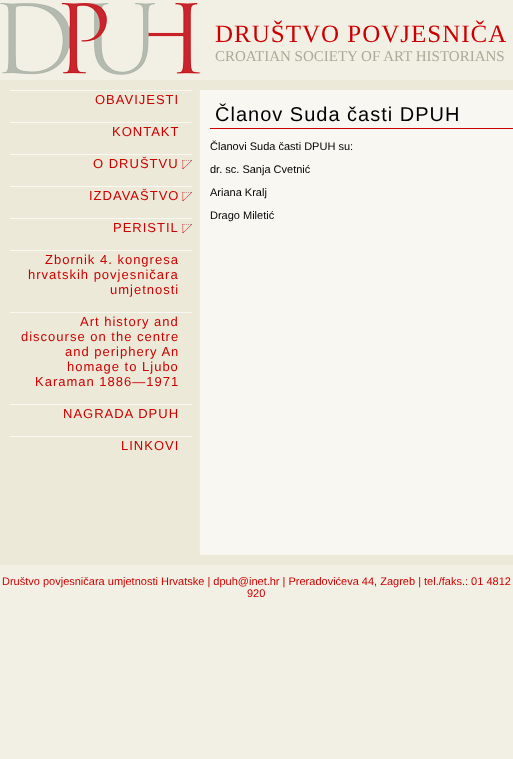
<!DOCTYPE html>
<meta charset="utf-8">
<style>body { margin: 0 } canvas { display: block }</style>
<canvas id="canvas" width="513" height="759"></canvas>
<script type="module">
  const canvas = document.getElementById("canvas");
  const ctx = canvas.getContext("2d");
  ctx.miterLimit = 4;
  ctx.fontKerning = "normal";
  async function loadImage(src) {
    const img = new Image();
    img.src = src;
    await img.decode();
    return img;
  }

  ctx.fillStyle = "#f2f0e4";
  ctx.fillRect(0, 0, 513, 759);
  ctx.drawImage(await loadImage("img1.png"), 0, 3, 200, 72);
  ctx.letterSpacing = "1px";
  ctx.font = "25px Liberation Serif";
  ctx.fillStyle = "#cc0000";
  ctx.fillText("DRUŠTVO POVJESNIČA", 215, 42);
  ctx.letterSpacing = "0px";
  ctx.font = "15px Liberation Serif";
  ctx.fillStyle = "#aca998";
  ctx.fillText("CROATIAN SOCIETY OF ART HISTORIANS", 215, 61);
  ctx.fillStyle = "#ece9d8";
  ctx.fillRect(10, 90, 189, 465);
  ctx.drawImage(await loadImage("img2.png"), 199, 90, 314, 465);
  ctx.strokeStyle = "#ece9d8";
  ctx.lineWidth = 10;
  ctx.strokeRect(5, 85, 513, 475);
  ctx.fillStyle = "#f9f8f2";
  ctx.fillRect(10, 90, 182, 1);
  ctx.letterSpacing = "1px";
  ctx.font = "13px Liberation Sans";
  ctx.fillStyle = "#cc0000";
  ctx.fillText("OBAVIJESTI", 95, 104);
  ctx.fillStyle = "#f9f8f2";
  ctx.fillRect(10, 122, 182, 1);
  ctx.fillStyle = "#cc0000";
  ctx.fillText("KONTAKT", 112, 136);
  ctx.drawImage(await loadImage("img3.png"), 182, 160, 10, 10);
  ctx.fillStyle = "#f9f8f2";
  ctx.fillRect(10, 154, 182, 1);
  ctx.fillStyle = "#cc0000";
  ctx.fillText("O DRUŠTVU", 93, 168);
  ctx.drawImage(await loadImage("img3.png"), 182, 192, 10, 10);
  ctx.fillStyle = "#f9f8f2";
  ctx.fillRect(10, 186, 182, 1);
  ctx.fillStyle = "#cc0000";
  ctx.fillText("IZDAVAŠTVO", 89, 200);
  ctx.drawImage(await loadImage("img3.png"), 182, 224, 10, 10);
  ctx.fillStyle = "#f9f8f2";
  ctx.fillRect(10, 218, 182, 1);
  ctx.fillStyle = "#cc0000";
  ctx.fillText("PERISTIL", 113, 232);
  ctx.fillStyle = "#f9f8f2";
  ctx.fillRect(10, 250, 182, 1);
  ctx.fillStyle = "#cc0000";
  ctx.fillText("Zbornik 4. kongresa", 45, 264);
  ctx.fillText("hrvatskih povjesničara", 28, 279);
  ctx.fillText("umjetnosti", 110, 294);
  ctx.fillStyle = "#f9f8f2";
  ctx.fillRect(10, 312, 182, 1);
  ctx.fillStyle = "#cc0000";
  ctx.fillText("Art history and", 80, 326);
  ctx.fillText("discourse on the centre", 21, 341);
  ctx.fillText("and periphery An", 65, 356);
  ctx.fillText("homage to Ljubo", 67, 371);
  ctx.fillText("Karaman 1886—1971", 35, 386);
  ctx.fillStyle = "#f9f8f2";
  ctx.fillRect(10, 404, 182, 1);
  ctx.fillStyle = "#cc0000";
  ctx.fillText("NAGRADA DPUH", 63, 418);
  ctx.fillStyle = "#f9f8f2";
  ctx.fillRect(10, 436, 182, 1);
  ctx.fillStyle = "#cc0000";
  ctx.fillText("LINKOVI", 121, 450);
  ctx.fillStyle = "#f9f8f2";
  ctx.fillRect(200, 90, 1, 152);
  ctx.fillStyle = "#cc0000";
  ctx.fillRect(210, 128, 303, 1);
  ctx.font = "20px Liberation Sans";
  ctx.fillStyle = "#000000";
  ctx.fillText("Članov Suda časti DPUH", 215, 121);
  ctx.letterSpacing = "0px";
  ctx.font = "11px Liberation Sans";
  ctx.fillText("Članovi Suda časti DPUH su:", 210, 150);
  ctx.fillText("dr. sc. Sanja Cvetnić", 210, 173);
  ctx.fillText("Ariana Kralj", 210, 196);
  ctx.fillText("Drago Miletić", 210, 219);
  ctx.fillStyle = "#cc0000";
  ctx.fillText("Društvo povjesničara umjetnosti Hrvatske | dpuh@inet.hr | Preradovićeva 44, Zagreb | tel./faks.: 01 4812", 2, 585);
  ctx.fillText("920", 247, 597);
</script>
